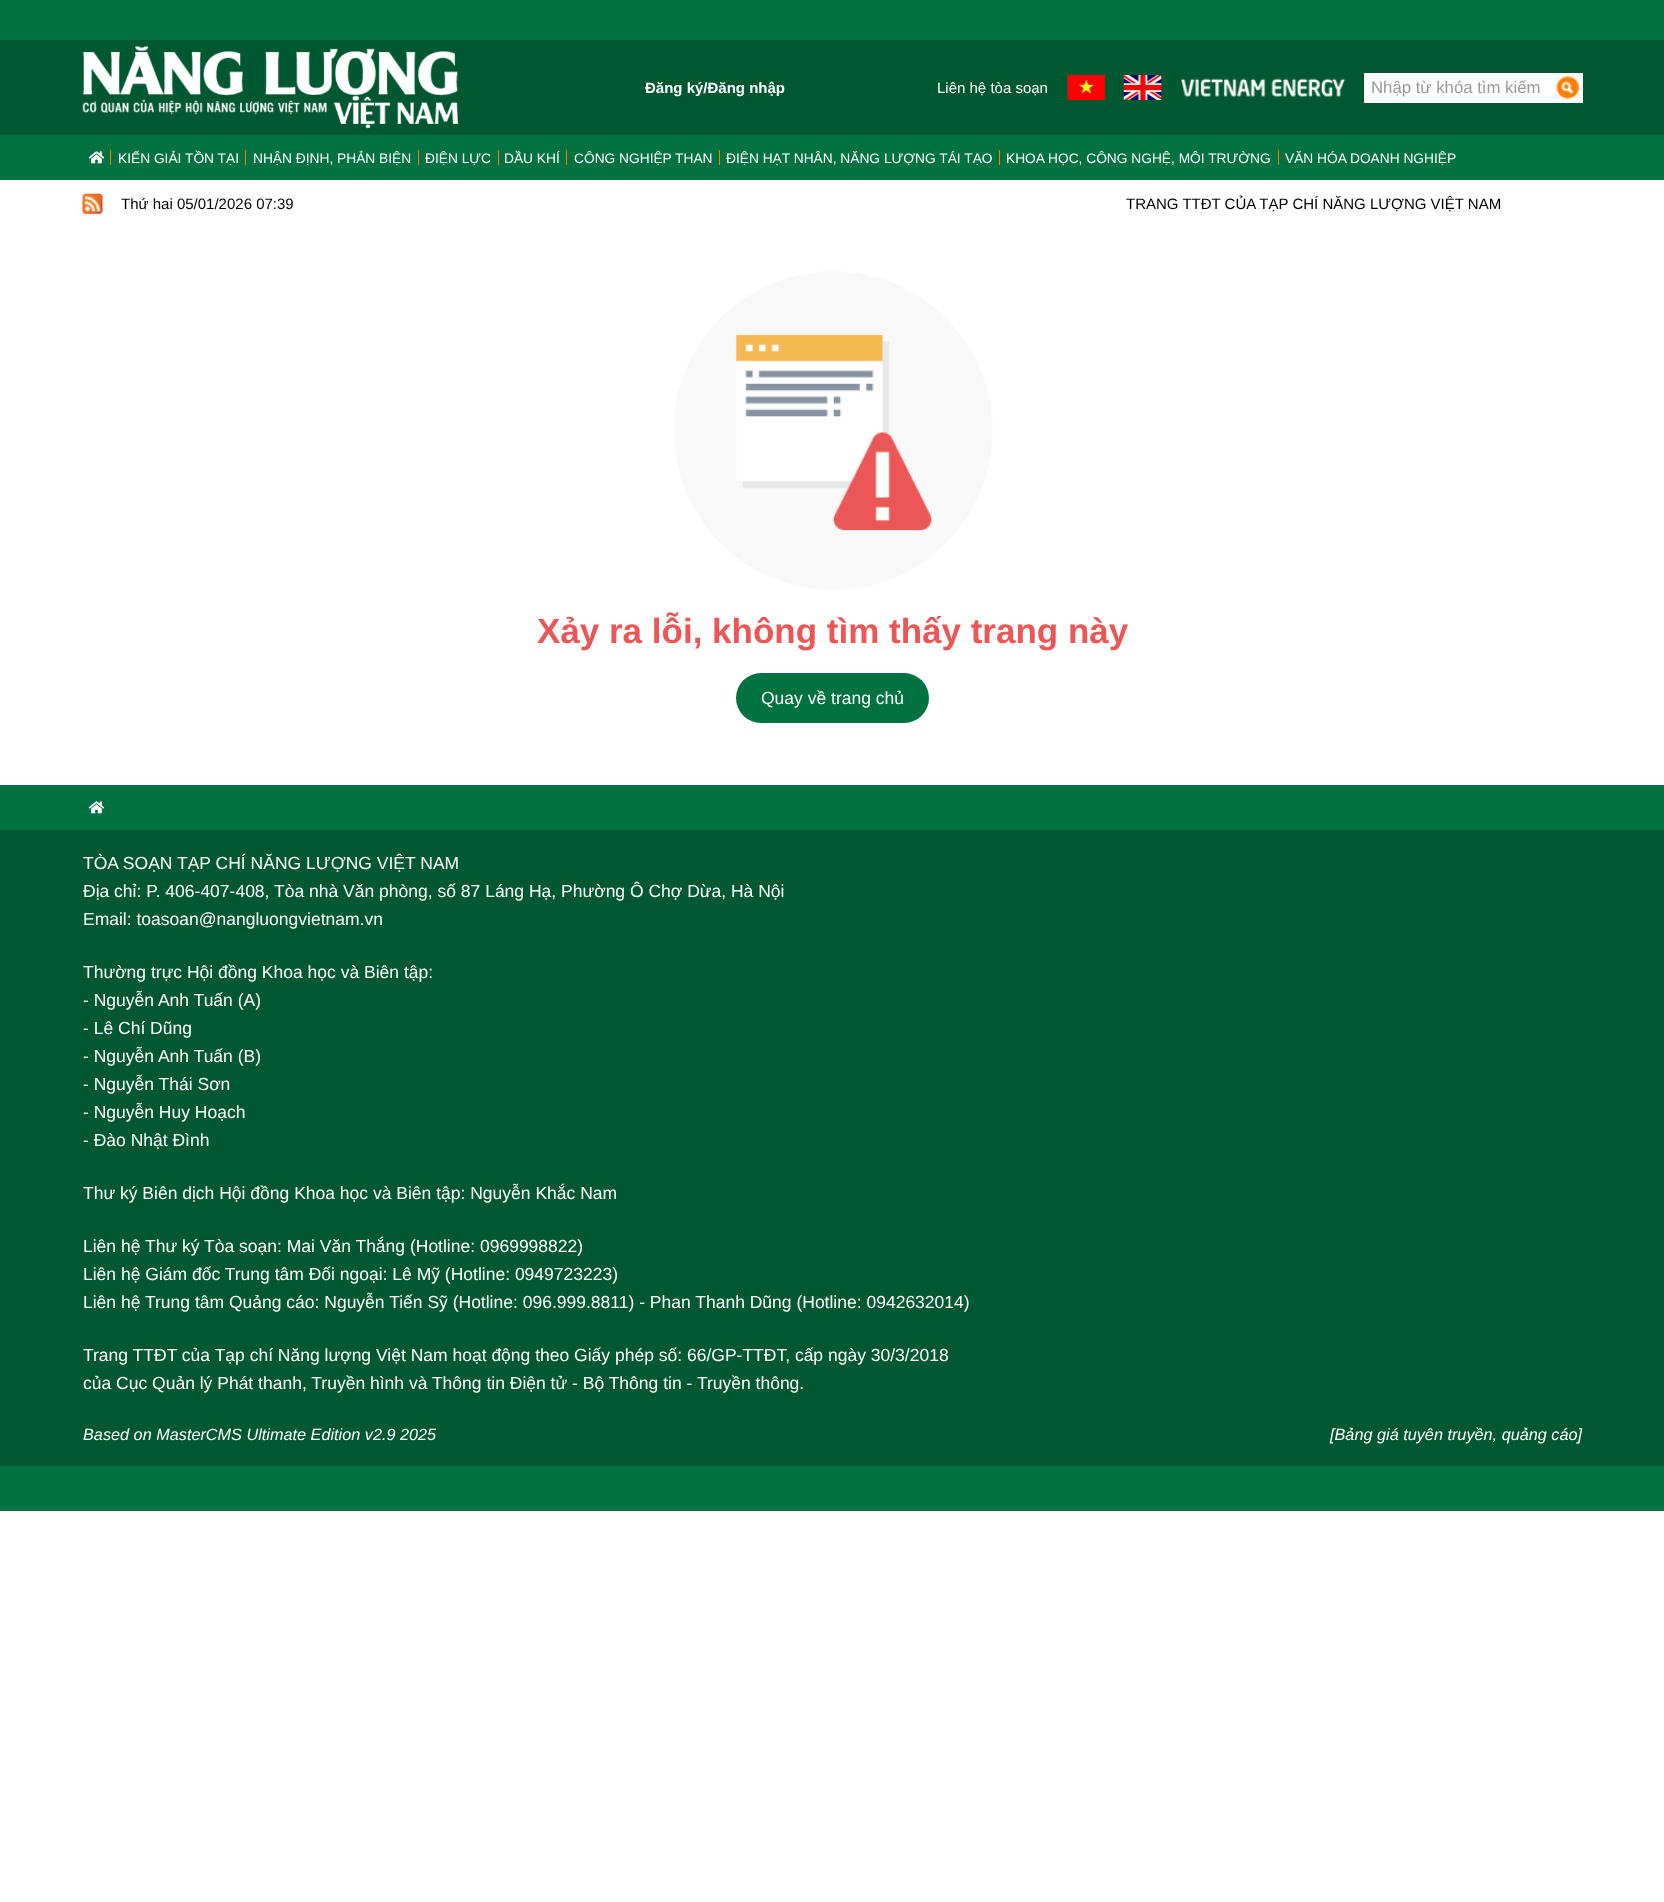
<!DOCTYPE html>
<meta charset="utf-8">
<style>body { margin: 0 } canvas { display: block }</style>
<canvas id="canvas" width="1664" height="1902"></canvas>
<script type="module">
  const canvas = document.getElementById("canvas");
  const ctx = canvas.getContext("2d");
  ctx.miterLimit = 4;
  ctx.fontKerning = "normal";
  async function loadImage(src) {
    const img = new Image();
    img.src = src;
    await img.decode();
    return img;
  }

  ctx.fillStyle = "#ffffff";
  ctx.fillRect(0, 0, 1664, 1902);
  ctx.fillStyle = "#007140";
  ctx.fillRect(0, 0, 1664, 40);
  ctx.fillStyle = "#005832";
  ctx.fillRect(0, 40, 1664, 95);
  ctx.drawImage(await loadImage("img1.png"), 82, 46, 377, 83);
  ctx.font = "bold 15px Liberation Sans";
  ctx.fillStyle = "#ffffff";
  ctx.fillText("Đăng ký/Đăng nhập", 645, 93);
  ctx.font = "15px Liberation Sans";
  ctx.fillText("Liên hệ tòa soạn", 937, 93);
  ctx.drawImage(await loadImage("img2.png"), 1067, 75, 38, 25);
  ctx.drawImage(await loadImage("img3.png"), 1123, 75, 39, 25);
  ctx.drawImage(await loadImage("img4.png"), 1181, 78, 164, 20);
  ctx.fillRect(1364, 73, 219, 30);
  ctx.font = "16.75px Liberation Sans";
  ctx.fillStyle = "#999999";
  ctx.fillText("Nhập từ khóa tìm kiếm", 1371, 93);
  ctx.drawImage(await loadImage("img5.png"), 1556, 76, 23, 23);
  ctx.fillStyle = "#007140";
  ctx.fillRect(0, 135, 1664, 45);
  ctx.drawImage(await loadImage("img6.png"), 88, 151, 17, 13);
  ctx.font = "13.75px Liberation Sans";
  ctx.fillStyle = "#ffffff";
  ctx.fillText("KIẾN GIẢI TỒN TẠI", 118, 163);
  ctx.fillStyle = "#ff8000";
  ctx.fillRect(110, 150, 1, 15);
  ctx.fillStyle = "#ffffff";
  ctx.fillText("NHẬN ĐỊNH, PHẢN BIỆN", 253, 163);
  ctx.fillStyle = "#ff8000";
  ctx.fillRect(245, 150, 1, 15);
  ctx.fillStyle = "#ffffff";
  ctx.fillText("ĐIỆN LỰC", 425, 163);
  ctx.fillStyle = "#ff8000";
  ctx.fillRect(418, 150, 1, 15);
  ctx.fillStyle = "#ffffff";
  ctx.fillText("DẦU KHÍ", 504, 163);
  ctx.fillStyle = "#ff8000";
  ctx.fillRect(498, 150, 1, 15);
  ctx.fillStyle = "#ffffff";
  ctx.fillText("CÔNG NGHIỆP THAN", 574, 163);
  ctx.fillStyle = "#ff8000";
  ctx.fillRect(566, 150, 1, 15);
  ctx.fillStyle = "#ffffff";
  ctx.fillText("ĐIỆN HẠT NHÂN, NĂNG LƯỢNG TÁI TẠO", 726, 163);
  ctx.fillStyle = "#ff8000";
  ctx.fillRect(719, 150, 1, 15);
  ctx.fillStyle = "#ffffff";
  ctx.fillText("KHOA HỌC, CÔNG NGHỆ, MÔI TRƯỜNG", 1006, 163);
  ctx.fillStyle = "#ff8000";
  ctx.fillRect(999, 150, 1, 15);
  ctx.fillStyle = "#ffffff";
  ctx.fillText("VĂN HÓA DOANH NGHIỆP", 1285, 163);
  ctx.fillStyle = "#ff8000";
  ctx.fillRect(1278, 150, 1, 15);
  ctx.drawImage(await loadImage("img7.png"), 82, 193, 21, 21);
  ctx.font = "15px Liberation Sans";
  ctx.fillStyle = "#000000";
  ctx.fillText("Thứ hai 05/01/2026 07:39", 121, 209);
  ctx.fillText("TRANG TTĐT CỦA TẠP CHÍ NĂNG LƯỢNG VIỆT NAM", 1126, 209);
  ctx.drawImage(await loadImage("img8.png"), 674, 271, 319, 319);
  ctx.font = "bold 35px Liberation Sans";
  ctx.fillStyle = "#eb5757";
  ctx.fillText("Xảy ra lỗi, không tìm thấy trang này", 537, 643);
  ctx.fillStyle = "#007140";
  ctx.beginPath();
  ctx.roundRect(736, 673, 193, 50, 25);
  ctx.fill();
  ctx.font = "17.5px Liberation Sans";
  ctx.fillStyle = "#ffffff";
  ctx.fillText("Quay về trang chủ", 761, 704);
  ctx.fillStyle = "#007140";
  ctx.fillRect(0, 1466, 1664, 45);
  ctx.fillRect(0, 785, 1664, 45);
  ctx.drawImage(await loadImage("img6.png"), 88, 801, 17, 13);
  ctx.fillStyle = "#005832";
  ctx.fillRect(0, 830, 1664, 636);
  ctx.fillStyle = "#ffffff";
  ctx.fillText("TÒA SOẠN TẠP CHÍ NĂNG LƯỢNG VIỆT NAM", 83, 869);
  ctx.fillText("Địa chỉ: P. 406-407-408, Tòa nhà Văn phòng, số 87 Láng Hạ, Phường Ô Chợ Dừa, Hà Nội", 83, 897);
  ctx.fillText("Email: toasoan@nangluongvietnam.vn", 83, 925);
  ctx.fillText("Thường trực Hội đồng Khoa học và Biên tập:", 83, 978);
  ctx.fillText("- Nguyễn Anh Tuấn (A)", 83, 1006);
  ctx.fillText("- Lê Chí Dũng", 83, 1034);
  ctx.fillText("- Nguyễn Anh Tuấn (B)", 83, 1062);
  ctx.fillText("- Nguyễn Thái Sơn", 83, 1090);
  ctx.fillText("- Nguyễn Huy Hoạch", 83, 1118);
  ctx.fillText("- Đào Nhật Đình", 83, 1146);
  ctx.fillText("Thư ký Biên dịch Hội đồng Khoa học và Biên tập: Nguyễn Khắc Nam", 83, 1199);
  ctx.fillText("Liên hệ Thư ký Tòa soạn: Mai Văn Thắng (Hotline: 0969998822)", 83, 1252);
  ctx.fillText("Liên hệ Giám đốc Trung tâm Đối ngoại: Lê Mỹ (Hotline: 0949723223)", 83, 1280);
  ctx.fillText("Liên hệ Trung tâm Quảng cáo: Nguyễn Tiến Sỹ (Hotline: 096.999.8811) - Phan Thanh Dũng (Hotline: 0942632014)", 83, 1308);
  ctx.fillText("Trang TTĐT của Tạp chí Năng lượng Việt Nam hoạt động theo Giấy phép số: 66/GP-TTĐT, cấp ngày 30/3/2018", 83, 1361);
  ctx.fillText("của Cục Quản lý Phát thanh, Truyền hình và Thông tin Điện tử - Bộ Thông tin - Truyền thông.", 83, 1389);
  ctx.font = "italic 16.25px Liberation Sans";
  ctx.fillText("Based on MasterCMS Ultimate Edition v2.9 2025", 83, 1440);
  ctx.fillText("[Bảng giá tuyên truyền, quảng cáo]", 1330, 1440);
</script>
